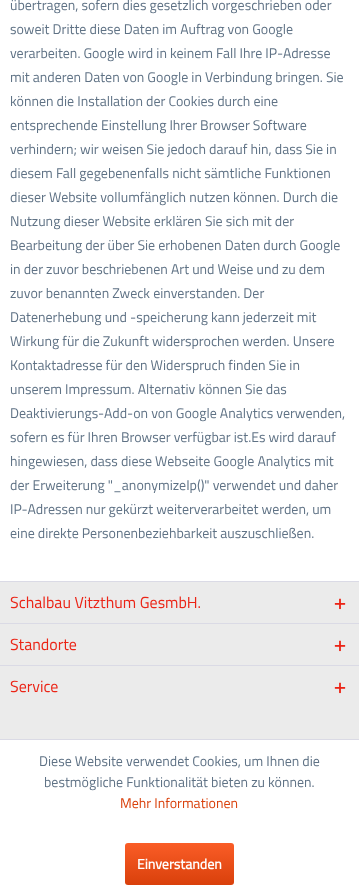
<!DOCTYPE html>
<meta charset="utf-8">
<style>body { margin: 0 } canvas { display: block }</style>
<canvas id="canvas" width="359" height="895"></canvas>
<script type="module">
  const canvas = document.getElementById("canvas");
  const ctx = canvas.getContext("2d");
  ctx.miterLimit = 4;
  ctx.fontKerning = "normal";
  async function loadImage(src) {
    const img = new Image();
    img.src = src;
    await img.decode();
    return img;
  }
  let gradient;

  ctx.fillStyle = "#ffffff";
  ctx.fillRect(0, 0, 359, 895);
  ctx.font = "14px Titillium Web";
  ctx.fillStyle = "#5f7285";
  ctx.fillText("übertragen, sofern dies gesetzlich vorgeschrieben oder", 10, 10);
  ctx.fillText("soweit Dritte diese Daten im Auftrag von Google", 10, 34);
  ctx.fillText("verarbeiten. Google wird in keinem Fall Ihre IP-Adresse", 10, 58);
  ctx.fillText("mit anderen Daten von Google in Verbindung bringen. Sie", 10, 82);
  ctx.fillText("können die Installation der Cookies durch eine", 10, 106);
  ctx.fillText("entsprechende Einstellung Ihrer Browser Software", 10, 130);
  ctx.fillText("verhindern; wir weisen Sie jedoch darauf hin, dass Sie in", 10, 154);
  ctx.fillText("diesem Fall gegebenenfalls nicht sämtliche Funktionen", 10, 178);
  ctx.fillText("dieser Website vollumfänglich nutzen können. Durch die", 10, 202);
  ctx.fillText("Nutzung dieser Website erklären Sie sich mit der", 10, 226);
  ctx.fillText("Bearbeitung der über Sie erhobenen Daten durch Google", 10, 250);
  ctx.fillText("in der zuvor beschriebenen Art und Weise und zu dem", 10, 274);
  ctx.fillText("zuvor benannten Zweck einverstanden. Der", 10, 298);
  ctx.fillText("Datenerhebung und -speicherung kann jederzeit mit", 10, 322);
  ctx.fillText("Wirkung für die Zukunft widersprochen werden. Unsere", 10, 346);
  ctx.fillText("Kontaktadresse für den Widerspruch finden Sie in", 10, 370);
  ctx.fillText("unserem Impressum. Alternativ können Sie das", 10, 394);
  ctx.fillText("Deaktivierungs-Add-on von Google Analytics verwenden,", 10, 418);
  ctx.fillText("sofern es für Ihren Browser verfügbar ist.Es wird darauf", 10, 442);
  ctx.fillText("hingewiesen, dass diese Webseite Google Analytics mit", 10, 466);
  ctx.fillText("der Erweiterung \"_anonymizeIp()\" verwendet und daher", 10, 490);
  ctx.fillText("IP-Adressen nur gekürzt weiterverarbeitet werden, um", 10, 514);
  ctx.fillText("eine direkte Personenbeziehbarkeit auszuschließen.", 10, 538);
  ctx.fillStyle = "#ebebeb";
  ctx.fillRect(0, 582, 359, 157);
  ctx.fillStyle = "#dadae5";
  ctx.fillRect(0, 581, 359, 1);
  ctx.font = "16px Titillium Web";
  ctx.fillStyle = "#eb2416";
  ctx.fillText("Schalbau Vitzthum GesmbH.", 10, 608);
  ctx.drawImage(await loadImage("img1.png"), 334, 598, 12, 12);
  ctx.fillStyle = "#dadae5";
  ctx.fillRect(0, 623, 359, 1);
  ctx.fillStyle = "#eb2416";
  ctx.fillText("Standorte", 10, 650);
  ctx.drawImage(await loadImage("img1.png"), 334, 640, 12, 12);
  ctx.fillStyle = "#dadae5";
  ctx.fillRect(0, 665, 359, 1);
  ctx.fillStyle = "#eb2416";
  ctx.fillText("Service", 10, 692);
  ctx.drawImage(await loadImage("img1.png"), 334, 682, 12, 12);
  ctx.fillStyle = "#dadae5";
  ctx.fillRect(0, 739, 359, 1);
  ctx.font = "14px Titillium Web";
  ctx.fillStyle = "#5f7285";
  ctx.fillText("Diese Website verwendet Cookies, um Ihnen die", 39, 766);
  ctx.fillText("bestmögliche Funktionalität bieten zu können.", 44, 787);
  ctx.fillStyle = "#d9400b";
  ctx.fillText("Mehr Informationen", 120, 808);
  gradient = ctx.createLinearGradient(180, 843, 180, 885);
  gradient.addColorStop(0, "#fa5d27");
  gradient.addColorStop(1, "#d9400b");
  ctx.fillStyle = gradient;
  ctx.beginPath();
  ctx.roundRect(125, 843, 109, 42, 3);
  ctx.fill();
  ctx.font = "bold 14px Titillium Web";
  ctx.fillStyle = "#ffffff";
  ctx.fillText("Einverstanden", 137, 869);
</script>
